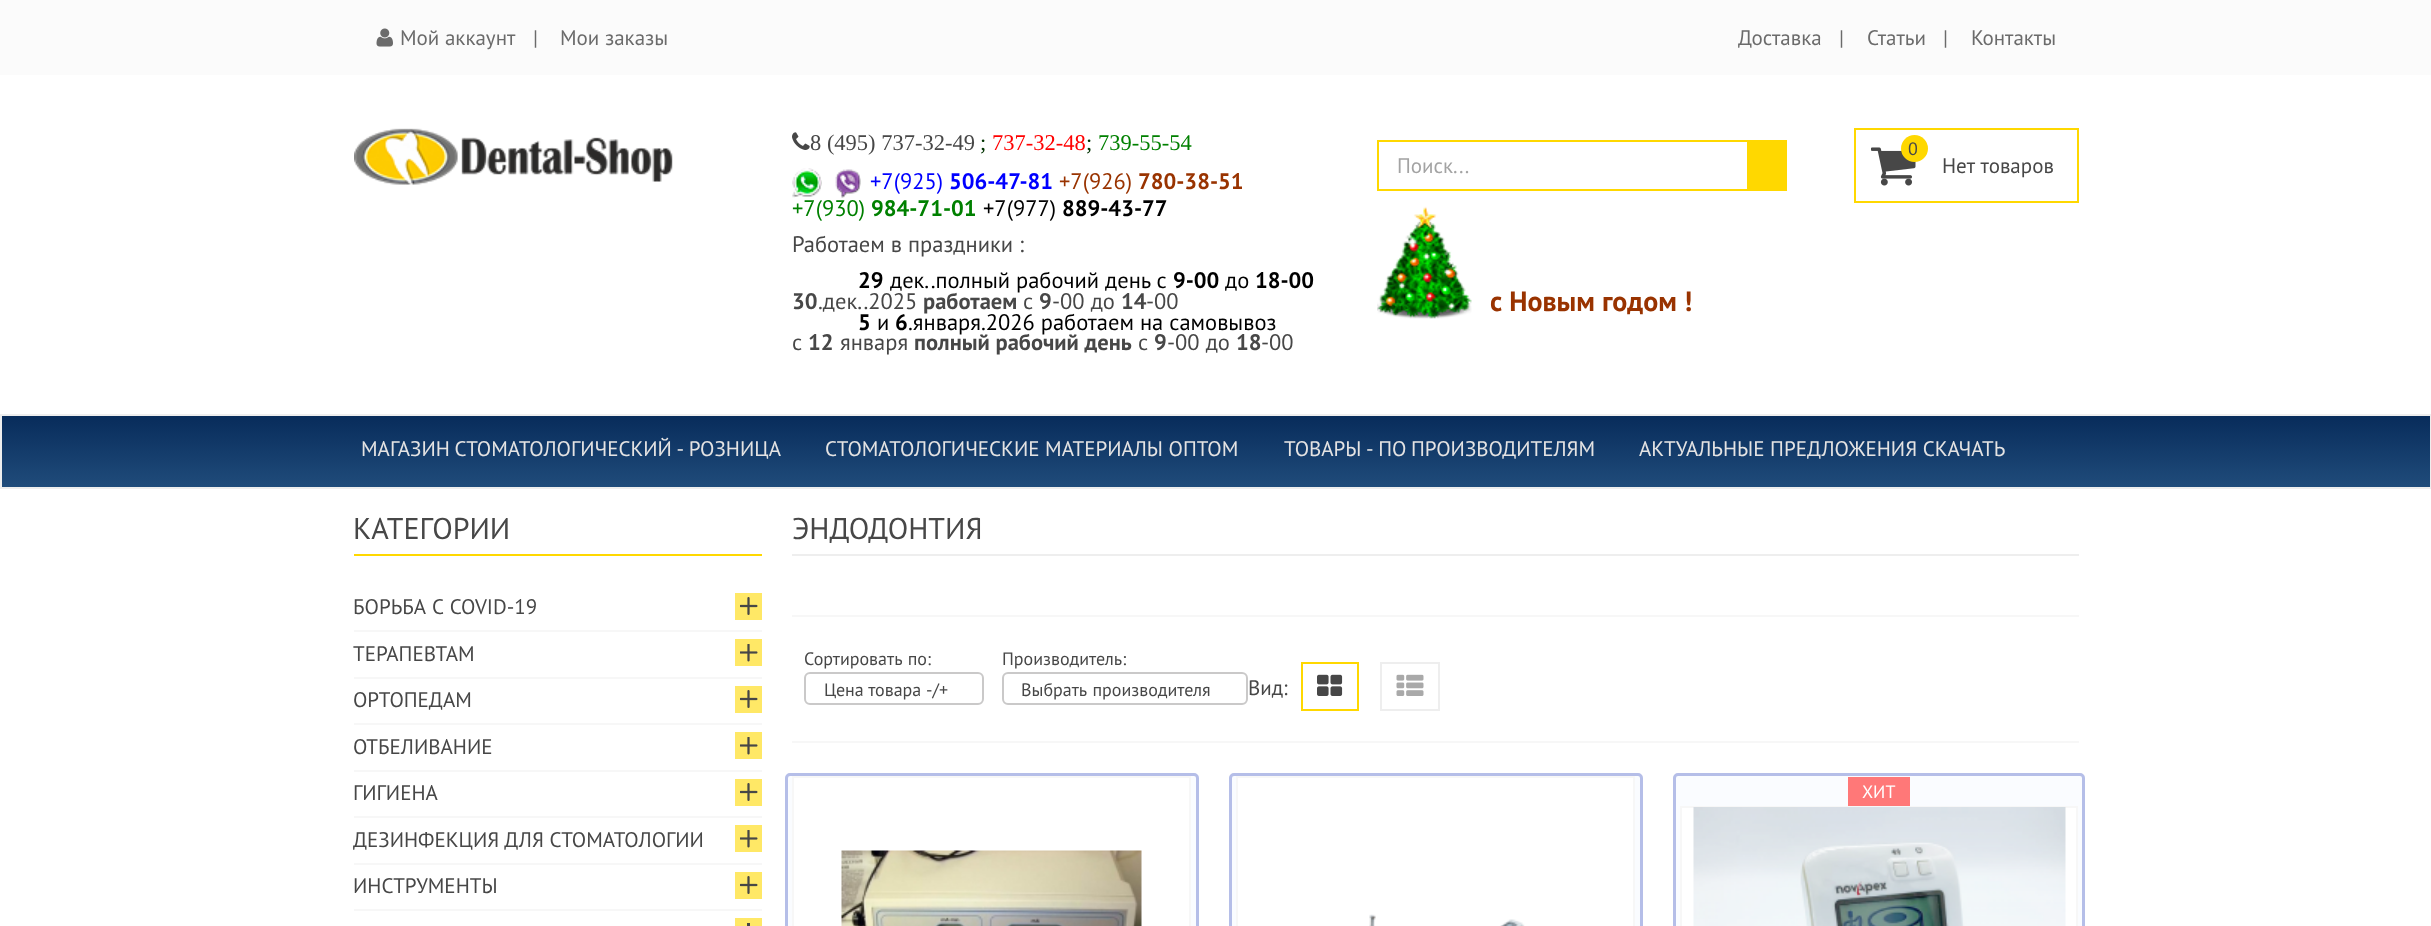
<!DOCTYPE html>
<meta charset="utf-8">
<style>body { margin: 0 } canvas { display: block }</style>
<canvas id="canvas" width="2431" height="926"></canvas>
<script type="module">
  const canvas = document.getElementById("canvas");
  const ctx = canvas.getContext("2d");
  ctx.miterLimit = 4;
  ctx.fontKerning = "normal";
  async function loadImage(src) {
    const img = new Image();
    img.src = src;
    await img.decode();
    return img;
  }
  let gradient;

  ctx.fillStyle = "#ffffff";
  ctx.fillRect(0, 0, 2431, 926);
  ctx.fillStyle = "#fbfbfb";
  ctx.fillRect(0, 0, 2431, 75);
  ctx.drawImage(await loadImage("img1.png"), 376, 28, 17, 19);
  ctx.font = "21px PT Sans";
  ctx.fillStyle = "#6b6b6b";
  ctx.fillText("Мой аккаунт", 400, 45);
  ctx.fillText("|", 533, 45);
  ctx.fillText("Мои заказы", 560, 45);
  ctx.fillText("Доставка", 1738, 45);
  ctx.fillText("|", 1839, 45);
  ctx.fillText("Статьи", 1867, 45);
  ctx.fillText("|", 1943, 45);
  ctx.fillText("Контакты", 1971, 45);
  ctx.drawImage(await loadImage("img2.png"), 354, 128, 319, 57);
  ctx.drawImage(await loadImage("img3.png"), 792, 132, 18, 18);
  ctx.font = "22.5px Liberation Serif";
  ctx.fillStyle = "#474747";
  ctx.fillText("8 (495) 737-32-49", 810, 150);
  ctx.fillStyle = "#003300";
  ctx.fillText(";", 980, 150);
  ctx.fillStyle = "#ff0000";
  ctx.fillText("737-32-48", 992, 150);
  ctx.fillStyle = "#003300";
  ctx.fillText(";", 1086, 150);
  ctx.fillStyle = "#008000";
  ctx.fillText("739-55-54", 1098, 150);
  ctx.drawImage(await loadImage("img4.png"), 792, 168, 30, 30);
  ctx.drawImage(await loadImage("img5.png"), 835, 169, 26, 29);
  ctx.font = "22.5px PT Sans";
  ctx.fillStyle = "#0000ff";
  ctx.fillText("+7(925)", 870, 189);
  ctx.font = "bold 22.5px PT Sans";
  ctx.fillText("506-47-81", 949, 189);
  ctx.font = "22.5px PT Sans";
  ctx.fillStyle = "#993300";
  ctx.fillText("+7(926)", 1059, 189);
  ctx.font = "bold 22.5px PT Sans";
  ctx.fillText("780-38-51", 1138, 189);
  ctx.font = "22.5px PT Sans";
  ctx.fillStyle = "#008000";
  ctx.fillText("+7(930)", 792, 216);
  ctx.font = "bold 22.5px PT Sans";
  ctx.fillText("984-71-01", 871, 216);
  ctx.font = "22.5px PT Sans";
  ctx.fillStyle = "#000000";
  ctx.fillText("+7(977)", 983, 216);
  ctx.font = "bold 22.5px PT Sans";
  ctx.fillText("889-43-77", 1062, 216);
  ctx.font = "22.5px PT Sans";
  ctx.fillStyle = "#474747";
  ctx.fillText("Работаем в праздники :", 792, 252);
  ctx.font = "bold 22.5px PT Sans";
  ctx.fillStyle = "#000000";
  ctx.fillText("29", 858, 288);
  ctx.font = "22.5px PT Sans";
  ctx.fillText("дек..полный рабочий день с", 890, 288);
  ctx.font = "bold 22.5px PT Sans";
  ctx.fillText("9-00", 1173, 288);
  ctx.font = "22.5px PT Sans";
  ctx.fillText("до", 1225, 288);
  ctx.font = "bold 22.5px PT Sans";
  ctx.fillText("18-00", 1255, 288);
  ctx.fillStyle = "#474747";
  ctx.fillText("30", 792, 309);
  ctx.font = "22.5px PT Sans";
  ctx.fillText(".дек..2025", 818, 309);
  ctx.font = "bold 22.5px PT Sans";
  ctx.fillText("работаем", 923, 309);
  ctx.font = "22.5px PT Sans";
  ctx.fillText("с", 1023, 309);
  ctx.font = "bold 22.5px PT Sans";
  ctx.fillText("9", 1039, 309);
  ctx.font = "22.5px PT Sans";
  ctx.fillText("-00 до", 1052, 309);
  ctx.font = "bold 22.5px PT Sans";
  ctx.fillText("14", 1121, 309);
  ctx.font = "22.5px PT Sans";
  ctx.fillText("-00", 1146, 309);
  ctx.font = "bold 22.5px PT Sans";
  ctx.fillStyle = "#000000";
  ctx.fillText("5", 858, 330);
  ctx.font = "22.5px PT Sans";
  ctx.fillText("и", 877, 330);
  ctx.font = "bold 22.5px PT Sans";
  ctx.fillText("6", 895, 330);
  ctx.font = "22.5px PT Sans";
  ctx.fillText(".января.2026 работаем на самовывоз", 908, 330);
  ctx.fillStyle = "#474747";
  ctx.fillText("с", 792, 350);
  ctx.font = "bold 22.5px PT Sans";
  ctx.fillText("12", 808, 350);
  ctx.font = "22.5px PT Sans";
  ctx.fillText("января", 840, 350);
  ctx.font = "bold 22.5px PT Sans";
  ctx.fillText("полный рабочий день", 914, 350);
  ctx.font = "22.5px PT Sans";
  ctx.fillText("с", 1138, 350);
  ctx.font = "bold 22.5px PT Sans";
  ctx.fillText("9", 1154, 350);
  ctx.font = "22.5px PT Sans";
  ctx.fillText("-00 до", 1167, 350);
  ctx.font = "bold 22.5px PT Sans";
  ctx.fillText("18", 1236, 350);
  ctx.font = "22.5px PT Sans";
  ctx.fillText("-00", 1261, 350);
  ctx.strokeStyle = "#ffd800";
  ctx.lineWidth = 2;
  ctx.strokeRect(1378, 141, 370, 49);
  ctx.font = "21px PT Sans";
  ctx.fillStyle = "#a3a3a3";
  ctx.fillText("Поиск...", 1397, 173);
  ctx.fillStyle = "#ffd800";
  ctx.fillRect(1749, 140, 38, 51);
  ctx.drawImage(await loadImage("img6.png"), 1377, 206, 95, 113);
  ctx.font = "bold 28px PT Sans";
  ctx.fillStyle = "#993300";
  ctx.fillText("с Новым годом !", 1490, 311);
  ctx.strokeRect(1855, 129, 223, 73);
  ctx.drawImage(await loadImage("img7.png"), 1871, 147, 45, 39);
  ctx.fillStyle = "#ffd800";
  ctx.beginPath();
  ctx.arc(1914.5, 148.5, 13.5, 0, Math.PI * 2);
  ctx.fill();
  ctx.font = "18px PT Sans";
  ctx.fillStyle = "#474747";
  ctx.fillText("0", 1908, 155);
  ctx.wordSpacing = "1px";
  ctx.font = "21px PT Sans";
  ctx.fillText("Нет товаров", 1942, 173);
  gradient = ctx.createLinearGradient(1216, 488, 1216, 416);
  gradient.addColorStop(0, "#204c7b");
  gradient.addColorStop(1, "#082c5b");
  ctx.fillStyle = gradient;
  ctx.fillRect(2, 416, 2428, 71);
  ctx.strokeStyle = "#eeeeee";
  ctx.strokeRect(1, 415, 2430, 73);
  ctx.wordSpacing = "-1px";
  ctx.fillStyle = "#e4e3e3";
  ctx.fillText("МАГАЗИН СТОМАТОЛОГИЧЕСКИЙ - РОЗНИЦА", 361, 456);
  ctx.wordSpacing = "0px";
  ctx.fillText("СТОМАТОЛОГИЧЕСКИЕ МАТЕРИАЛЫ ОПТОМ", 825, 456);
  ctx.wordSpacing = "-1px";
  ctx.fillText("ТОВАРЫ - ПО ПРОИЗВОДИТЕЛЯМ", 1284, 456);
  ctx.wordSpacing = "0px";
  ctx.fillText("АКТУАЛЬНЫЕ ПРЕДЛОЖЕНИЯ СКАЧАТЬ", 1639, 456);
  ctx.fillStyle = "#ffd800";
  ctx.fillRect(354, 554, 408, 2);
  ctx.font = "30px PT Sans";
  ctx.fillStyle = "#474747";
  ctx.fillText("КАТЕГОРИИ", 353, 539);
  ctx.fillStyle = "#f7f7f7";
  ctx.fillRect(354, 630, 408, 2);
  ctx.wordSpacing = "1px";
  ctx.font = "21px PT Sans";
  ctx.fillStyle = "#474747";
  ctx.fillText("БОРЬБА С COVID-19", 353, 614);
  ctx.fillStyle = "#ffe866";
  ctx.fillRect(735, 593, 27, 27);
  ctx.drawImage(await loadImage("img8.png"), 740, 597, 18, 18);
  ctx.fillStyle = "#f7f7f7";
  ctx.fillRect(354, 677, 408, 2);
  ctx.wordSpacing = "0px";
  ctx.fillStyle = "#474747";
  ctx.fillText("ТЕРАПЕВТАМ", 353, 661);
  ctx.fillStyle = "#ffe866";
  ctx.fillRect(735, 639, 27, 27);
  ctx.drawImage(await loadImage("img9.png"), 740, 644, 18, 18);
  ctx.fillStyle = "#f7f7f7";
  ctx.fillRect(354, 723, 408, 2);
  ctx.fillStyle = "#474747";
  ctx.fillText("ОРТОПЕДАМ", 353, 707);
  ctx.fillStyle = "#ffe866";
  ctx.fillRect(735, 686, 27, 27);
  ctx.drawImage(await loadImage("img8.png"), 740, 690, 18, 18);
  ctx.fillStyle = "#f7f7f7";
  ctx.fillRect(354, 770, 408, 2);
  ctx.fillStyle = "#474747";
  ctx.fillText("ОТБЕЛИВАНИЕ", 353, 754);
  ctx.fillStyle = "#ffe866";
  ctx.fillRect(735, 732, 27, 27);
  ctx.drawImage(await loadImage("img9.png"), 740, 737, 18, 18);
  ctx.fillStyle = "#f7f7f7";
  ctx.fillRect(354, 816, 408, 2);
  ctx.fillStyle = "#474747";
  ctx.fillText("ГИГИЕНА", 353, 800);
  ctx.fillStyle = "#ffe866";
  ctx.fillRect(735, 779, 27, 27);
  ctx.drawImage(await loadImage("img8.png"), 740, 783, 18, 18);
  ctx.fillStyle = "#f7f7f7";
  ctx.fillRect(354, 863, 408, 2);
  ctx.fillStyle = "#474747";
  ctx.fillText("ДЕЗИНФЕКЦИЯ ДЛЯ СТОМАТОЛОГИИ", 353, 847);
  ctx.fillStyle = "#ffe866";
  ctx.fillRect(735, 825, 27, 27);
  ctx.drawImage(await loadImage("img9.png"), 740, 830, 18, 18);
  ctx.fillStyle = "#f7f7f7";
  ctx.fillRect(354, 909, 408, 2);
  ctx.fillStyle = "#474747";
  ctx.fillText("ИНСТРУМЕНТЫ", 353, 893);
  ctx.fillStyle = "#ffe866";
  ctx.fillRect(735, 872, 27, 27);
  ctx.drawImage(await loadImage("img8.png"), 740, 876, 18, 18);
  ctx.fillRect(735, 918, 27, 8);
  ctx.fillStyle = "#474747";
  ctx.fillRect(747, 923, 3, 3);
  ctx.fillStyle = "#eeeeee";
  ctx.fillRect(792, 554, 1287, 2);
  ctx.font = "30px PT Sans";
  ctx.fillStyle = "#474747";
  ctx.fillText("ЭНДОДОНТИЯ", 792, 539);
  ctx.fillStyle = "#f7f7f7";
  ctx.fillRect(792, 615, 1287, 2);
  ctx.fillRect(792, 741, 1287, 2);
  ctx.wordSpacing = "1px";
  ctx.font = "18px PT Sans";
  ctx.fillStyle = "#474747";
  ctx.fillText("Сортировать по:", 804, 665);
  ctx.beginPath();
  ctx.roundRect(805, 673, 178, 31, 5);
  ctx.strokeStyle = "#cac9c9";
  ctx.stroke();
  ctx.wordSpacing = "0px";
  ctx.fillText("Цена товара -/+", 824, 696);
  ctx.fillText("Производитель:", 1002, 665);
  ctx.beginPath();
  ctx.roundRect(1003, 673, 244, 31, 5);
  ctx.stroke();
  ctx.wordSpacing = "1px";
  ctx.fillText("Выбрать производителя", 1021, 696);
  ctx.wordSpacing = "0px";
  ctx.font = "21px PT Sans";
  ctx.fillText("Вид:", 1248, 695);
  ctx.strokeStyle = "#ffd800";
  ctx.strokeRect(1302, 663, 56, 47);
  ctx.drawImage(await loadImage("img10.png"), 1317, 674, 26, 22);
  ctx.strokeStyle = "#eeeeee";
  ctx.strokeRect(1381, 663, 58, 47);
  ctx.drawImage(await loadImage("img11.png"), 1396, 674, 28, 22);
  ctx.fillStyle = "#fafcff";
  ctx.beginPath();
  ctx.roundRect(786.5, 774.5, 411, 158, 3.5);
  ctx.fill();
  ctx.strokeStyle = "#b5bee8";
  ctx.lineWidth = 3;
  ctx.stroke();
  ctx.fillStyle = "#ffffff";
  ctx.beginPath();
  ctx.rect(793, 777, 397, 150);
  ctx.fill();
  ctx.strokeStyle = "#f7f7f7";
  ctx.lineWidth = 2;
  ctx.stroke();
  ctx.drawImage(await loadImage("img12.png"), 841, 850, 301, 76);
  ctx.fillStyle = "#fafcff";
  ctx.beginPath();
  ctx.roundRect(1230.5, 774.5, 411, 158, 3.5);
  ctx.fill();
  ctx.strokeStyle = "#b5bee8";
  ctx.lineWidth = 3;
  ctx.stroke();
  ctx.fillStyle = "#ffffff";
  ctx.beginPath();
  ctx.rect(1237, 777, 397, 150);
  ctx.fill();
  ctx.strokeStyle = "#f7f7f7";
  ctx.lineWidth = 2;
  ctx.stroke();
  ctx.drawImage(await loadImage("img13.png"), 1369, 914, 156, 12);
  ctx.fillStyle = "#fafcff";
  ctx.beginPath();
  ctx.roundRect(1674.5, 774.5, 409, 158, 3.5);
  ctx.fill();
  ctx.strokeStyle = "#b5bee8";
  ctx.lineWidth = 3;
  ctx.stroke();
  ctx.fillStyle = "#ff7878";
  ctx.fillRect(1848, 777, 62, 29);
  ctx.font = "18px PT Sans";
  ctx.fillStyle = "#ffffff";
  ctx.fillText("ХИТ", 1862, 798);
  ctx.beginPath();
  ctx.rect(1681, 807, 396, 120);
  ctx.fill();
  ctx.strokeStyle = "#f7f7f7";
  ctx.lineWidth = 2;
  ctx.stroke();
  ctx.drawImage(await loadImage("img14.png"), 1693, 807, 373, 119);
</script>
